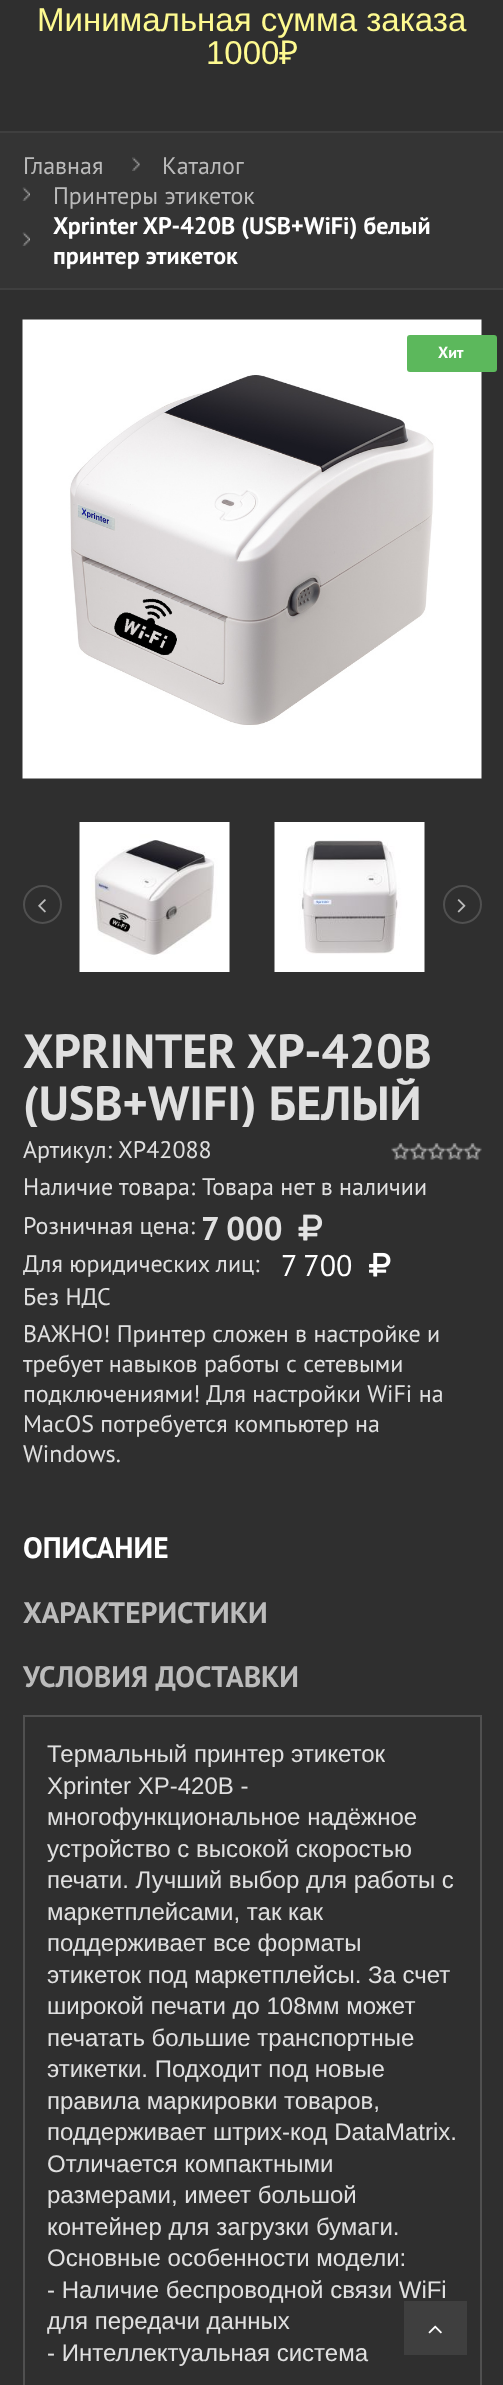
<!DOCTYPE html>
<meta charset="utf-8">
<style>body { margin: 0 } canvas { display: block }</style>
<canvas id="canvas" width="503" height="2385"></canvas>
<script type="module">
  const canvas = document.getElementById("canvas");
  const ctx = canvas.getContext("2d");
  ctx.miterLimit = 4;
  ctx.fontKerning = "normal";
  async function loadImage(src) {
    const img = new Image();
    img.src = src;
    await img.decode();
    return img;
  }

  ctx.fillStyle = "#2f2f2f";
  ctx.fillRect(0, 0, 503, 2385);
  ctx.font = "33px Liberation Sans";
  ctx.fillStyle = "#fefa90";
  ctx.fillText("Минимальная сумма заказа", 37, 31);
  ctx.fillText("1000", 206, 64);
  ctx.font = "33px Noto Sans";
  ctx.fillText("₽", 279, 64);
  ctx.fillStyle = "#343434";
  ctx.fillRect(0, 133, 503, 155);
  ctx.fillStyle = "#3f3f3f";
  ctx.fillRect(0, 131, 503, 2);
  ctx.fillRect(0, 288, 503, 2);
  ctx.font = "24px PT Sans";
  ctx.fillStyle = "#bbbbbb";
  ctx.fillText("Главная", 23, 174);
  ctx.drawImage(await loadImage("img1.png"), 132, 157, 8, 14);
  ctx.fillText("Каталог", 162, 174);
  ctx.drawImage(await loadImage("img2.png"), 22, 187, 8, 14);
  ctx.fillText("Принтеры этикеток", 53, 204);
  ctx.drawImage(await loadImage("img2.png"), 22, 232, 8, 14);
  ctx.font = "bold 24px PT Sans";
  ctx.fillStyle = "#ffffff";
  ctx.fillText("Xprinter XP-420B (USB+WiFi) белый", 53, 234);
  ctx.fillText("принтер этикеток", 53, 264);
  ctx.drawImage(await loadImage("img3.png"), 22, 319, 460, 460);
  ctx.fillStyle = "#5cb85c";
  ctx.beginPath();
  ctx.roundRect(407, 335, 90, 37, 3);
  ctx.fill();
  ctx.font = "bold 16px PT Sans";
  ctx.fillStyle = "#ffffff";
  ctx.fillText("Хит", 438, 358);
  ctx.beginPath();
  ctx.arc(42.5, 904.5, 18.5, 0, Math.PI * 2);
  ctx.strokeStyle = "#505050";
  ctx.lineWidth = 2;
  ctx.stroke();
  ctx.drawImage(await loadImage("img4.png"), 38, 899, 8, 14);
  ctx.drawImage(await loadImage("img5.png"), 79, 822, 151, 150);
  ctx.drawImage(await loadImage("img6.png"), 274, 822, 151, 150);
  ctx.beginPath();
  ctx.arc(462.5, 904.5, 18.5, 0, Math.PI * 2);
  ctx.stroke();
  ctx.drawImage(await loadImage("img7.png"), 457, 899, 9, 14);
  ctx.font = "bold 48px PT Sans";
  ctx.fillStyle = "#e0e0e0";
  ctx.fillText("XPRINTER XP-420B", 23, 1068);
  ctx.save();
  ctx.beginPath();
  ctx.rect(23, 1025, 459, 102);
  ctx.clip();
  ctx.fillText("(USB+WIFI) БЕЛЫЙ", 23, 1120);
  ctx.restore();
  ctx.font = "24px PT Sans";
  ctx.fillText("Артикул:", 23, 1158);
  ctx.fillText("XP42088", 118, 1158);
  ctx.drawImage(await loadImage("img8.png"), 391, 1143, 91, 17);
  ctx.fillText("Наличие товара:", 23, 1195);
  ctx.fillText("Товара нет в наличии", 202, 1195);
  ctx.fillText("Розничная цена:", 23, 1234);
  ctx.font = "bold 33px PT Sans";
  ctx.fillText("7 000", 201, 1240);
  ctx.drawImage(await loadImage("img9.png"), 298, 1214, 25, 27);
  ctx.font = "24px PT Sans";
  ctx.fillText("Для юридических лиц:", 23, 1272);
  ctx.wordSpacing = "-2px";
  ctx.font = "30px PT Sans";
  ctx.fillStyle = "#ffffff";
  ctx.fillText("7 700", 281, 1276);
  ctx.drawImage(await loadImage("img10.png"), 369, 1252, 22, 25);
  ctx.wordSpacing = "0px";
  ctx.font = "24px PT Sans";
  ctx.fillStyle = "#e0e0e0";
  ctx.fillText("Без НДС", 23, 1305);
  ctx.fillText("ВАЖНО! Принтер сложен в настройке и", 23, 1342);
  ctx.fillText("требует навыков работы с сетевыми", 23, 1372);
  ctx.fillText("подключениями! Для настройки WiFi на", 23, 1402);
  ctx.fillText("MacOS потребуется компьютер на", 23, 1432);
  ctx.fillText("Windows.", 23, 1462);
  ctx.font = "bold 29.5px PT Sans";
  ctx.fillStyle = "#ffffff";
  ctx.fillText("ОПИСАНИЕ", 23, 1558);
  ctx.fillStyle = "#bbbbbb";
  ctx.fillText("ХАРАКТЕРИСТИКИ", 23, 1623);
  ctx.fillText("УСЛОВИЯ ДОСТАВКИ", 23, 1687);
  ctx.strokeRect(24, 1716, 457, 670);
  ctx.font = "24px Liberation Sans";
  ctx.fillStyle = "#e0e0e0";
  ctx.fillText("Термальный принтер этикеток", 47, 1762);
  ctx.fillText("Xprinter XP-420B -", 47, 1794);
  ctx.fillText("многофункциональное надёжное", 47, 1825);
  ctx.fillText("устройство с высокой скоростью", 47, 1857);
  ctx.fillText("печати. Лучший выбор для работы с", 47, 1888);
  ctx.fillText("маркетплейсами, так как", 47, 1920);
  ctx.fillText("поддерживает все форматы", 47, 1951);
  ctx.fillText("этикеток под маркетплейсы. За счет", 47, 1983);
  ctx.fillText("широкой печати до 108мм может", 47, 2014);
  ctx.fillText("печатать большие транспортные", 47, 2046);
  ctx.fillText("этикетки. Подходит под новые", 47, 2077);
  ctx.fillText("правила маркировки товаров,", 47, 2109);
  ctx.fillText("поддерживает штрих-код DataMatrix.", 47, 2140);
  ctx.fillText("Отличается компактными", 47, 2172);
  ctx.fillText("размерами, имеет большой", 47, 2203);
  ctx.fillText("контейнер для загрузки бумаги.", 47, 2235);
  ctx.fillText("Основные особенности модели:", 47, 2266);
  ctx.fillText("- Наличие беспроводной связи WiFi", 47, 2298);
  ctx.fillText("для передачи данных", 47, 2329);
  ctx.fillText("- Интеллектуальная система", 47, 2361);
  ctx.fillStyle = "#3f3f3f";
  ctx.fillRect(404, 2301, 63, 54);
  ctx.drawImage(await loadImage("img11.png"), 428, 2325, 14, 9);
</script>
